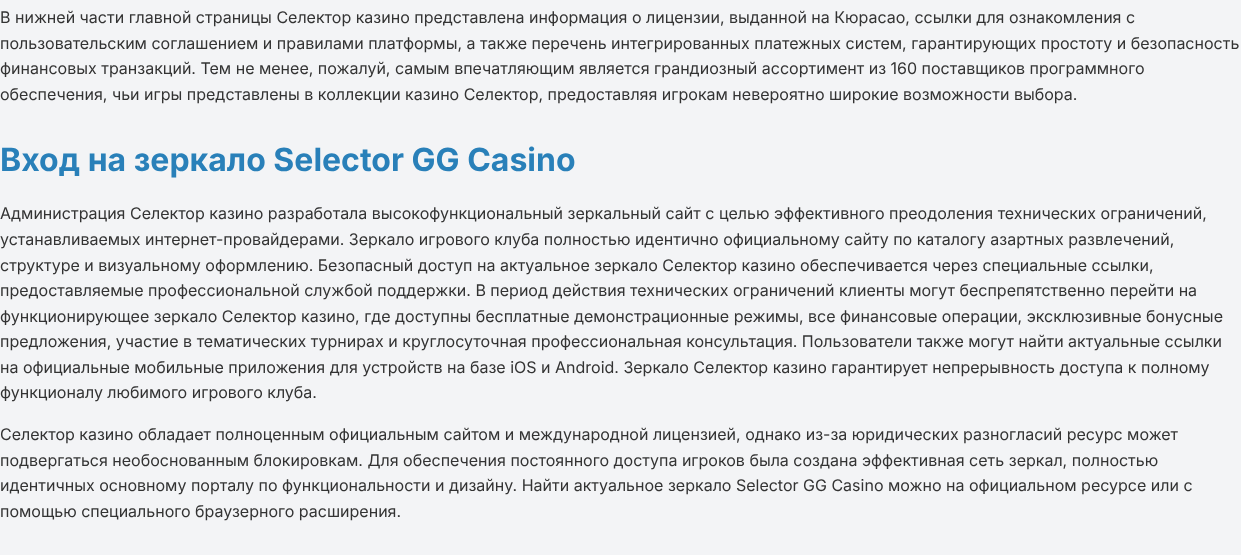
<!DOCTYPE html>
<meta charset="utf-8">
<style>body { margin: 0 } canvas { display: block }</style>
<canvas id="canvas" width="1241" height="555"></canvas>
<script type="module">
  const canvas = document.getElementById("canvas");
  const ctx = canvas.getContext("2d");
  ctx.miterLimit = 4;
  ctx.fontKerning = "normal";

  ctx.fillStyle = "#f3f4f6";
  ctx.fillRect(0, 0, 1241, 555);
  ctx.font = "16px Inter";
  ctx.fillStyle = "#333333";
  ctx.fillText("В нижней части главной страницы Селектор казино представлена информация о лицензии, выданной на Кюрасао, ссылки для ознакомления с", 0, 23);
  ctx.fillText("пользовательским соглашением и правилами платформы, а также перечень интегрированных платежных систем, гарантирующих простоту и безопасность", 0, 49);
  ctx.fillText("финансовых транзакций. Тем не менее, пожалуй, самым впечатляющим является грандиозный ассортимент из 160 поставщиков программного", 0, 74);
  ctx.fillText("обеспечения, чьи игры представлены в коллекции казино Селектор, предоставляя игрокам невероятно широкие возможности выбора.", 0, 100);
  ctx.font = "bold 32px Inter";
  ctx.fillStyle = "#2980b9";
  ctx.fillText("Вход на зеркало Selector GG Casino", 0, 171);
  ctx.font = "16px Inter";
  ctx.fillStyle = "#333333";
  ctx.fillText("Администрация Селектор казино разработала высокофункциональный зеркальный сайт с целью эффективного преодоления технических ограничений,", 0, 219);
  ctx.fillText("устанавливаемых интернет-провайдерами. Зеркало игрового клуба полностью идентично официальному сайту по каталогу азартных развлечений,", 0, 245);
  ctx.fillText("структуре и визуальному оформлению. Безопасный доступ на актуальное зеркало Селектор казино обеспечивается через специальные ссылки,", 0, 271);
  ctx.fillText("предоставляемые профессиональной службой поддержки. В период действия технических ограничений клиенты могут беспрепятственно перейти на", 0, 296);
  ctx.fillText("функционирующее зеркало Селектор казино, где доступны бесплатные демонстрационные режимы, все финансовые операции, эксклюзивные бонусные", 0, 322);
  ctx.fillText("предложения, участие в тематических турнирах и круглосуточная профессиональная консультация. Пользователи также могут найти актуальные ссылки", 0, 347);
  ctx.fillText("на официальные мобильные приложения для устройств на базе iOS и Android. Зеркало Селектор казино гарантирует непрерывность доступа к полному", 0, 373);
  ctx.fillText("функционалу любимого игрового клуба.", 0, 398);
  ctx.fillText("Селектор казино обладает полноценным официальным сайтом и международной лицензией, однако из-за юридических разногласий ресурс может", 0, 440);
  ctx.fillText("подвергаться необоснованным блокировкам. Для обеспечения постоянного доступа игроков была создана эффективная сеть зеркал, полностью", 0, 466);
  ctx.fillText("идентичных основному порталу по функциональности и дизайну. Найти актуальное зеркало Selector GG Casino можно на официальном ресурсе или с", 0, 491);
  ctx.fillText("помощью специального браузерного расширения.", 0, 517);
</script>
